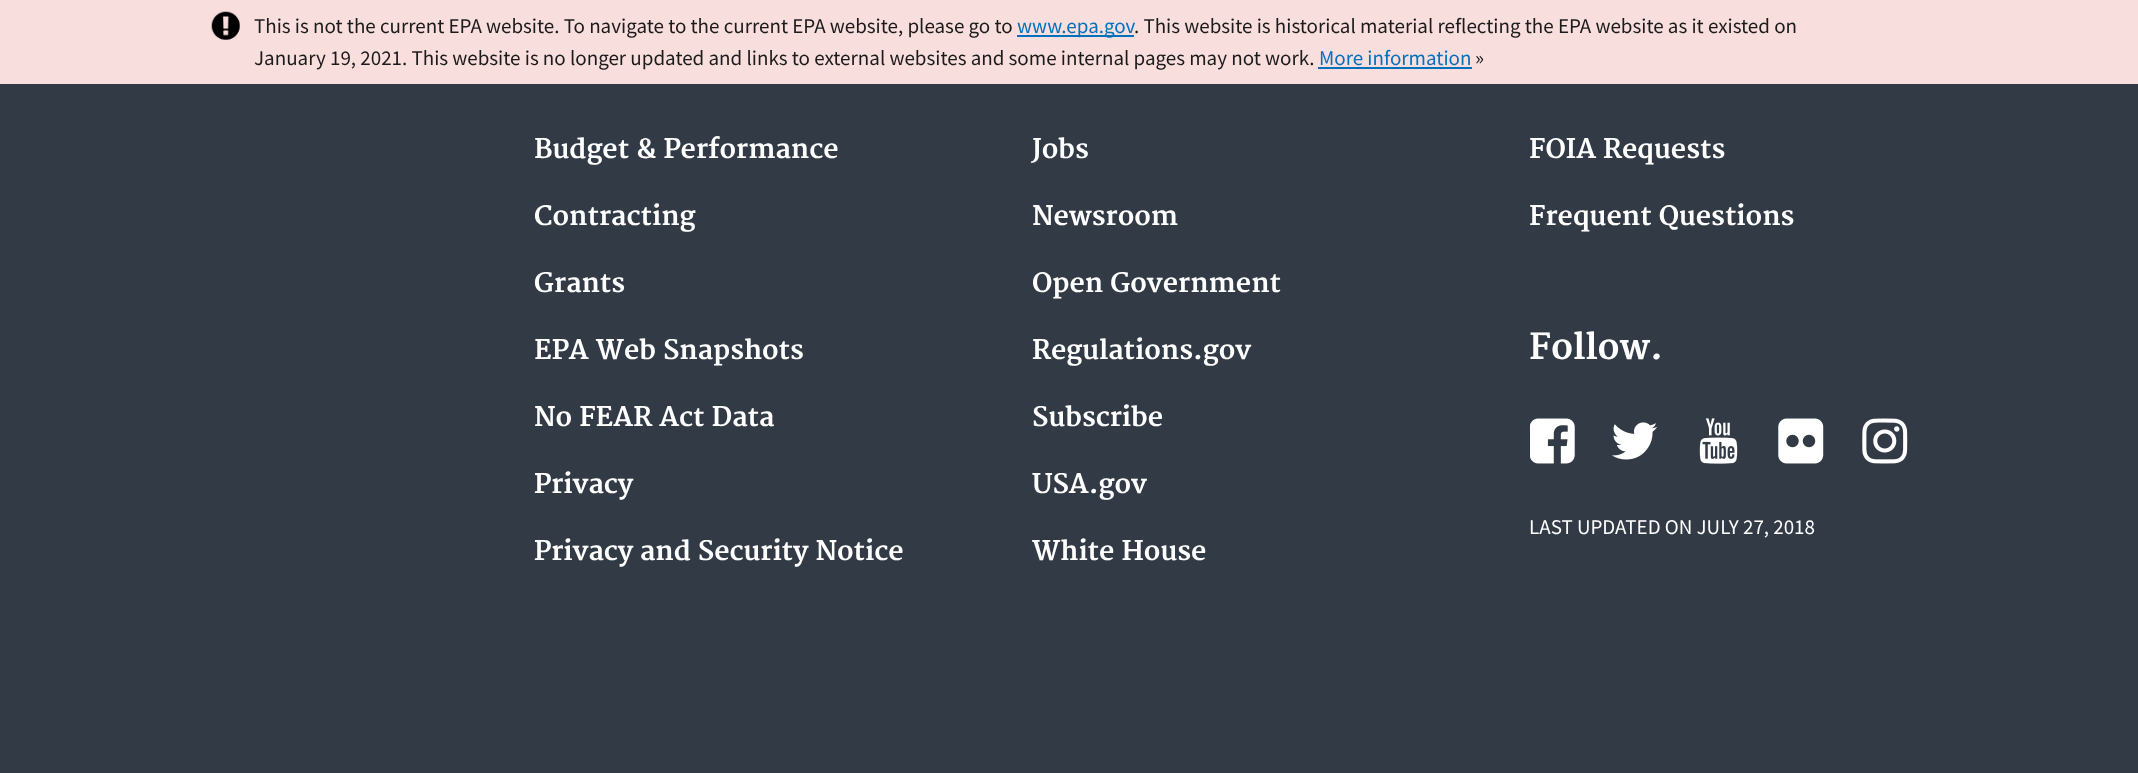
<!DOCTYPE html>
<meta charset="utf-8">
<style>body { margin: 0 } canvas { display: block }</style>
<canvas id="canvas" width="2138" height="773"></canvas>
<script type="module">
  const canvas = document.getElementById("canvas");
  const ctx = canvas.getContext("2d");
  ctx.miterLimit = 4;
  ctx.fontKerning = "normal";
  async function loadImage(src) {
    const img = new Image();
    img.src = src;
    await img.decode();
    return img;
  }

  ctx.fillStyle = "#323a45";
  ctx.fillRect(0, 0, 2138, 773);
  ctx.fillStyle = "#f9dede";
  ctx.fillRect(0, 0, 2138, 84);
  ctx.drawImage(await loadImage("img1.png"), 211, 11, 29, 29);
  ctx.font = "21px Source Sans Pro";
  ctx.fillStyle = "#1b1b1b";
  ctx.fillText("This is not the current EPA website. To navigate to the current EPA website, please go to", 254, 33);
  ctx.fillStyle = "#0071bc";
  ctx.fillRect(1017, 35, 117, 2);
  ctx.fillText("www.epa.gov", 1017, 33);
  ctx.fillStyle = "#1b1b1b";
  ctx.fillText(". This website is historical material reflecting the EPA website as it existed on", 1134, 33);
  ctx.fillText("January 19, 2021. This website is no longer updated and links to external websites and some internal pages may not work.", 254, 65);
  ctx.fillStyle = "#0071bc";
  ctx.fillText("More information", 1319, 65);
  ctx.fillRect(1318, 67, 154, 2);
  ctx.fillStyle = "#1b1b1b";
  ctx.fillText("»", 1475, 65);
  ctx.font = "bold 26.25px Merriweather";
  ctx.fillStyle = "#ffffff";
  ctx.fillText("Budget & Performance", 534, 158);
  ctx.fillText("Contracting", 534, 225);
  ctx.fillText("Grants", 534, 292);
  ctx.fillText("EPA Web Snapshots", 534, 359);
  ctx.fillText("No FEAR Act Data", 534, 426);
  ctx.fillText("Privacy", 534, 493);
  ctx.fillText("Privacy and Security Notice", 534, 560);
  ctx.fillText("Jobs", 1032, 158);
  ctx.fillText("Newsroom", 1032, 225);
  ctx.fillText("Open Government", 1032, 292);
  ctx.fillText("Regulations.gov", 1032, 359);
  ctx.fillText("Subscribe", 1032, 426);
  ctx.fillText("USA.gov", 1032, 493);
  ctx.fillText("White House", 1032, 560);
  ctx.fillText("FOIA Requests", 1529, 158);
  ctx.fillText("Frequent Questions", 1529, 225);
  ctx.font = "bold 35px Merriweather";
  ctx.fillText("Follow.", 1529, 359);
  ctx.drawImage(await loadImage("img2.png"), 1530, 418, 45, 46);
  ctx.drawImage(await loadImage("img3.png"), 1612, 422, 45, 38);
  ctx.drawImage(await loadImage("img4.png"), 1699, 418, 39, 46);
  ctx.drawImage(await loadImage("img5.png"), 1778, 418, 46, 46);
  ctx.drawImage(await loadImage("img6.png"), 1862, 418, 46, 46);
  ctx.font = "21px Source Sans Pro";
  ctx.fillText("LAST UPDATED ON JULY 27, 2018", 1529, 534);
</script>
